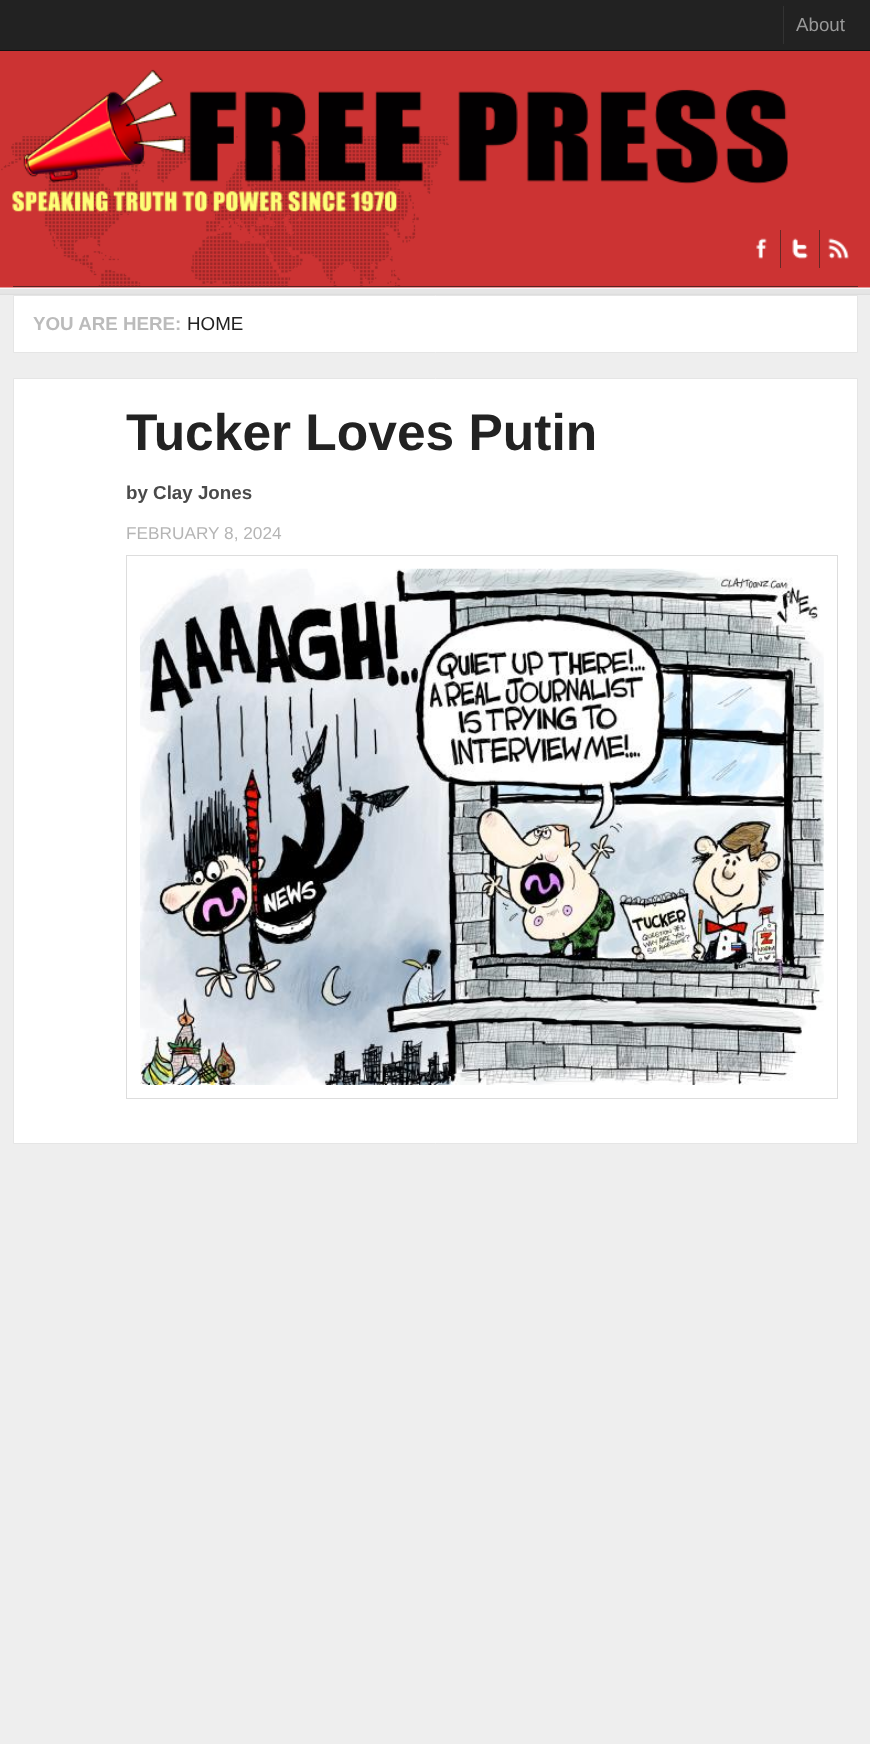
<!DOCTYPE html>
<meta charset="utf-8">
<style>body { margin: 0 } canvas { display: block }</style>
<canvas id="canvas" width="870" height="1744"></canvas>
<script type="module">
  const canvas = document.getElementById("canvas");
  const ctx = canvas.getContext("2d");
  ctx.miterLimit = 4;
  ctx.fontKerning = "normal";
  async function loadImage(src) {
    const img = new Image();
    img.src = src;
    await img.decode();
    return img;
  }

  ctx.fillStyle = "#eeeeee";
  ctx.fillRect(0, 0, 870, 1744);
  ctx.fillStyle = "#222222";
  ctx.fillRect(0, 0, 870, 50);
  ctx.fillStyle = "#111111";
  ctx.fillRect(0, 50, 870, 1);
  ctx.fillStyle = "#333333";
  ctx.fillRect(783, 6, 1, 38);
  ctx.font = "18.75px Liberation Sans";
  ctx.fillStyle = "#999999";
  ctx.fillText("About", 796, 31);
  ctx.fillStyle = "#cc3333";
  ctx.fillRect(0, 51, 870, 237);
  ctx.drawImage(await loadImage("img1.png"), 1, 136, 448, 150);
  ctx.drawImage(await loadImage("img2.png"), 12, 69, 776, 143);
  ctx.drawImage(await loadImage("img3.png"), 756, 238, 11, 21);
  ctx.drawImage(await loadImage("img4.png"), 792, 238, 16, 21);
  ctx.fillStyle = "#682725";
  ctx.fillRect(780, 230, 1, 38);
  ctx.drawImage(await loadImage("img5.png"), 828, 238, 21, 21);
  ctx.fillRect(819, 230, 1, 38);
  ctx.drawImage(await loadImage("img6.png"), 0, 287, 870, 8);
  ctx.fillStyle = "#5b211f";
  ctx.fillRect(13, 286, 845, 1);
  ctx.fillStyle = "#ffffff";
  ctx.beginPath();
  ctx.rect(13.5, 295.5, 844, 57);
  ctx.fill();
  ctx.strokeStyle = "#e5e5e5";
  ctx.stroke();
  ctx.font = "bold 18.75px Liberation Sans";
  ctx.fillStyle = "#bbbbbb";
  ctx.fillText("YOU ARE HERE:", 33, 330);
  ctx.font = "18.75px Liberation Sans";
  ctx.fillStyle = "#222222";
  ctx.fillText("HOME", 187, 330);
  ctx.fillStyle = "#ffffff";
  ctx.beginPath();
  ctx.rect(13.5, 378.5, 844, 765);
  ctx.fill();
  ctx.stroke();
  ctx.font = "bold 51.5px Liberation Sans";
  ctx.fillStyle = "#222222";
  ctx.fillText("Tucker Loves Putin", 126, 450);
  ctx.font = "bold 18.75px Liberation Sans";
  ctx.fillStyle = "#4a4a4a";
  ctx.fillText("by Clay Jones", 126, 499);
  ctx.font = "17.25px Liberation Sans";
  ctx.fillStyle = "#b5b5b5";
  ctx.fillText("FEBRUARY 8, 2024", 126, 539);
  ctx.strokeStyle = "#dddddd";
  ctx.strokeRect(126.5, 555.5, 711, 543);
  ctx.drawImage(await loadImage("img7.png"), 140, 568, 684, 517);
</script>
